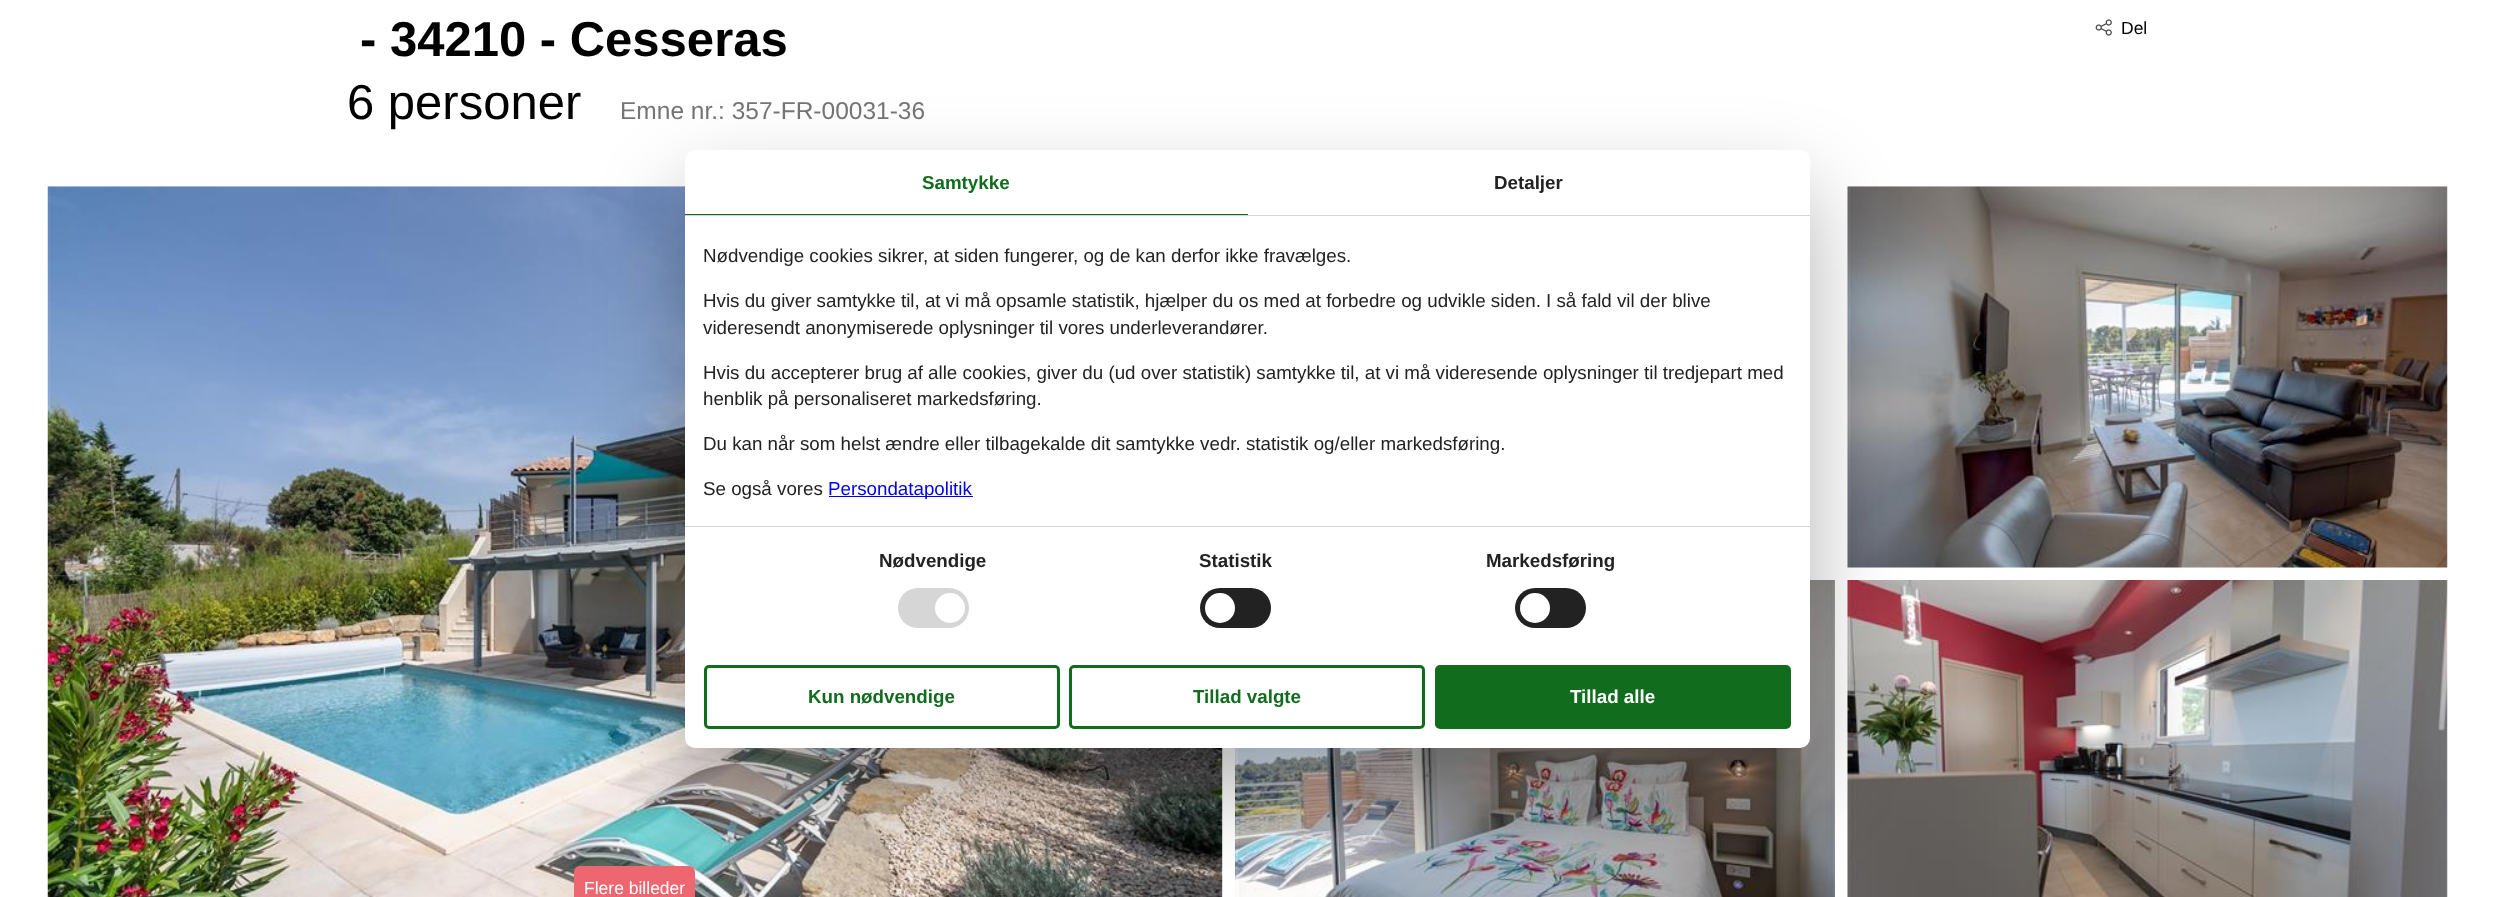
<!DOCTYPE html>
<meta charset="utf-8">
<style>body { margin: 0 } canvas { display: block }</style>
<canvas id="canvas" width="2493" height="897"></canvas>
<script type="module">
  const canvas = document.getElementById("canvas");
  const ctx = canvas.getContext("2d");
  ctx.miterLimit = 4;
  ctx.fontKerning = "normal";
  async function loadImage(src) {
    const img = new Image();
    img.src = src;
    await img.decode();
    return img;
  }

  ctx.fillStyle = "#ffffff";
  ctx.fillRect(0, 0, 2493, 897);
  ctx.font = "bold 49px Liberation Sans";
  ctx.fillStyle = "#000000";
  ctx.fillText("- 34210 - Cesseras", 360, 56);
  ctx.drawImage(await loadImage("img1.png"), 2095, 19, 17, 17);
  ctx.font = "17.5px Liberation Sans";
  ctx.fillText("Del", 2121, 34);
  ctx.font = "49px Liberation Sans";
  ctx.fillText("6 personer", 347, 119);
  ctx.font = "24.5px Liberation Sans";
  ctx.fillStyle = "#757575";
  ctx.fillText("Emne nr.: 357-FR-00031-36", 620, 119);
  ctx.drawImage(await loadImage("img2.png"), 47, 186, 1176, 711);
  ctx.fillStyle = "#ed6670";
  ctx.beginPath();
  ctx.roundRect(576, 868, 117, 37, 4);
  ctx.fill();
  ctx.strokeStyle = "#ed6670";
  ctx.lineWidth = 4;
  ctx.stroke();
  ctx.font = "17.5px Liberation Sans";
  ctx.fillStyle = "#ffffff";
  ctx.fillText("Flere billeder", 584, 894);
  ctx.fillStyle = "rgba(255, 255, 255, 0.25)";
  ctx.fillRect(1222, 748, 1, 149);
  ctx.drawImage(await loadImage("img3.png"), 1847, 186, 601, 382);
  ctx.drawImage(await loadImage("img4.png"), 1235, 580, 600, 317);
  ctx.drawImage(await loadImage("img5.png"), 1847, 580, 601, 317);
  ctx.fillStyle = "rgba(0, 0, 0, 0.3)";
  ctx.filter = "blur(42.5px)";
  ctx.beginPath();
  ctx.roundRect(685, 190, 1125, 598, 10);
  ctx.fill();
  ctx.filter = "none";
  ctx.fillStyle = "#ffffff";
  ctx.beginPath();
  ctx.roundRect(685, 150, 1125, 598, 10);
  ctx.fill();
  ctx.fillStyle = "#d6d6d6";
  ctx.fillRect(685, 215, 1125, 1);
  ctx.fillStyle = "#116d1d";
  ctx.fillRect(685, 214, 563, 1);
  ctx.font = "bold 18.75px Liberation Sans";
  ctx.fillText("Samtykke", 922, 189);
  ctx.fillStyle = "#222222";
  ctx.fillText("Detaljer", 1494, 189);
  ctx.fillStyle = "#d6d6d6";
  ctx.fillRect(685, 526, 1125, 1);
  ctx.font = "18.75px Liberation Sans";
  ctx.fillStyle = "#222222";
  ctx.fillText("Nødvendige cookies sikrer, at siden fungerer, og de kan derfor ikke fravælges.", 703, 262);
  ctx.fillText("Hvis du giver samtykke til, at vi må opsamle statistik, hjælper du os med at forbedre og udvikle siden. I så fald vil der blive", 703, 307);
  ctx.fillText("videresendt anonymiserede oplysninger til vores underleverandører.", 703, 334);
  ctx.fillText("Hvis du accepterer brug af alle cookies, giver du (ud over statistik) samtykke til, at vi må videresende oplysninger til tredjepart med", 703, 379);
  ctx.fillText("henblik på personaliseret markedsføring.", 703, 405);
  ctx.fillText("Du kan når som helst ændre eller tilbagekalde dit samtykke vedr. statistik og/eller markedsføring.", 703, 450);
  ctx.fillText("Se også vores", 703, 495);
  ctx.fillStyle = "#0000ee";
  ctx.fillRect(829, 496, 144, 1);
  ctx.fillText("Persondatapolitik", 828, 495);
  ctx.font = "bold 18.75px Liberation Sans";
  ctx.fillStyle = "#222222";
  ctx.fillText("Nødvendige", 879, 567);
  ctx.fillStyle = "#d6d6d6";
  ctx.beginPath();
  ctx.roundRect(898, 588, 71, 40, 20);
  ctx.fill();
  ctx.fillStyle = "#ffffff";
  ctx.beginPath();
  ctx.arc(950, 608, 15, 0, Math.PI * 2);
  ctx.fill();
  ctx.fillStyle = "#222222";
  ctx.fillText("Statistik", 1199, 567);
  ctx.beginPath();
  ctx.roundRect(1200, 588, 71, 40, 20);
  ctx.fill();
  ctx.fillStyle = "#ffffff";
  ctx.beginPath();
  ctx.arc(1220, 608, 15, 0, Math.PI * 2);
  ctx.fill();
  ctx.fillStyle = "#222222";
  ctx.fillText("Markedsføring", 1486, 567);
  ctx.beginPath();
  ctx.roundRect(1515, 588, 71, 40, 20);
  ctx.fill();
  ctx.fillStyle = "#ffffff";
  ctx.beginPath();
  ctx.arc(1535, 608, 15, 0, Math.PI * 2);
  ctx.fill();
  ctx.beginPath();
  ctx.roundRect(705.5, 666.5, 353, 61, 3.5);
  ctx.strokeStyle = "#116d1d";
  ctx.lineWidth = 3;
  ctx.stroke();
  ctx.fillStyle = "#116d1d";
  ctx.fillText("Kun nødvendige", 808, 703);
  ctx.beginPath();
  ctx.roundRect(1070.5, 666.5, 353, 61, 3.5);
  ctx.stroke();
  ctx.fillText("Tillad valgte", 1193, 703);
  ctx.beginPath();
  ctx.roundRect(1436.5, 666.5, 353, 61, 3.5);
  ctx.fill();
  ctx.stroke();
  ctx.fillStyle = "#ffffff";
  ctx.fillText("Tillad alle", 1570, 703);
</script>
